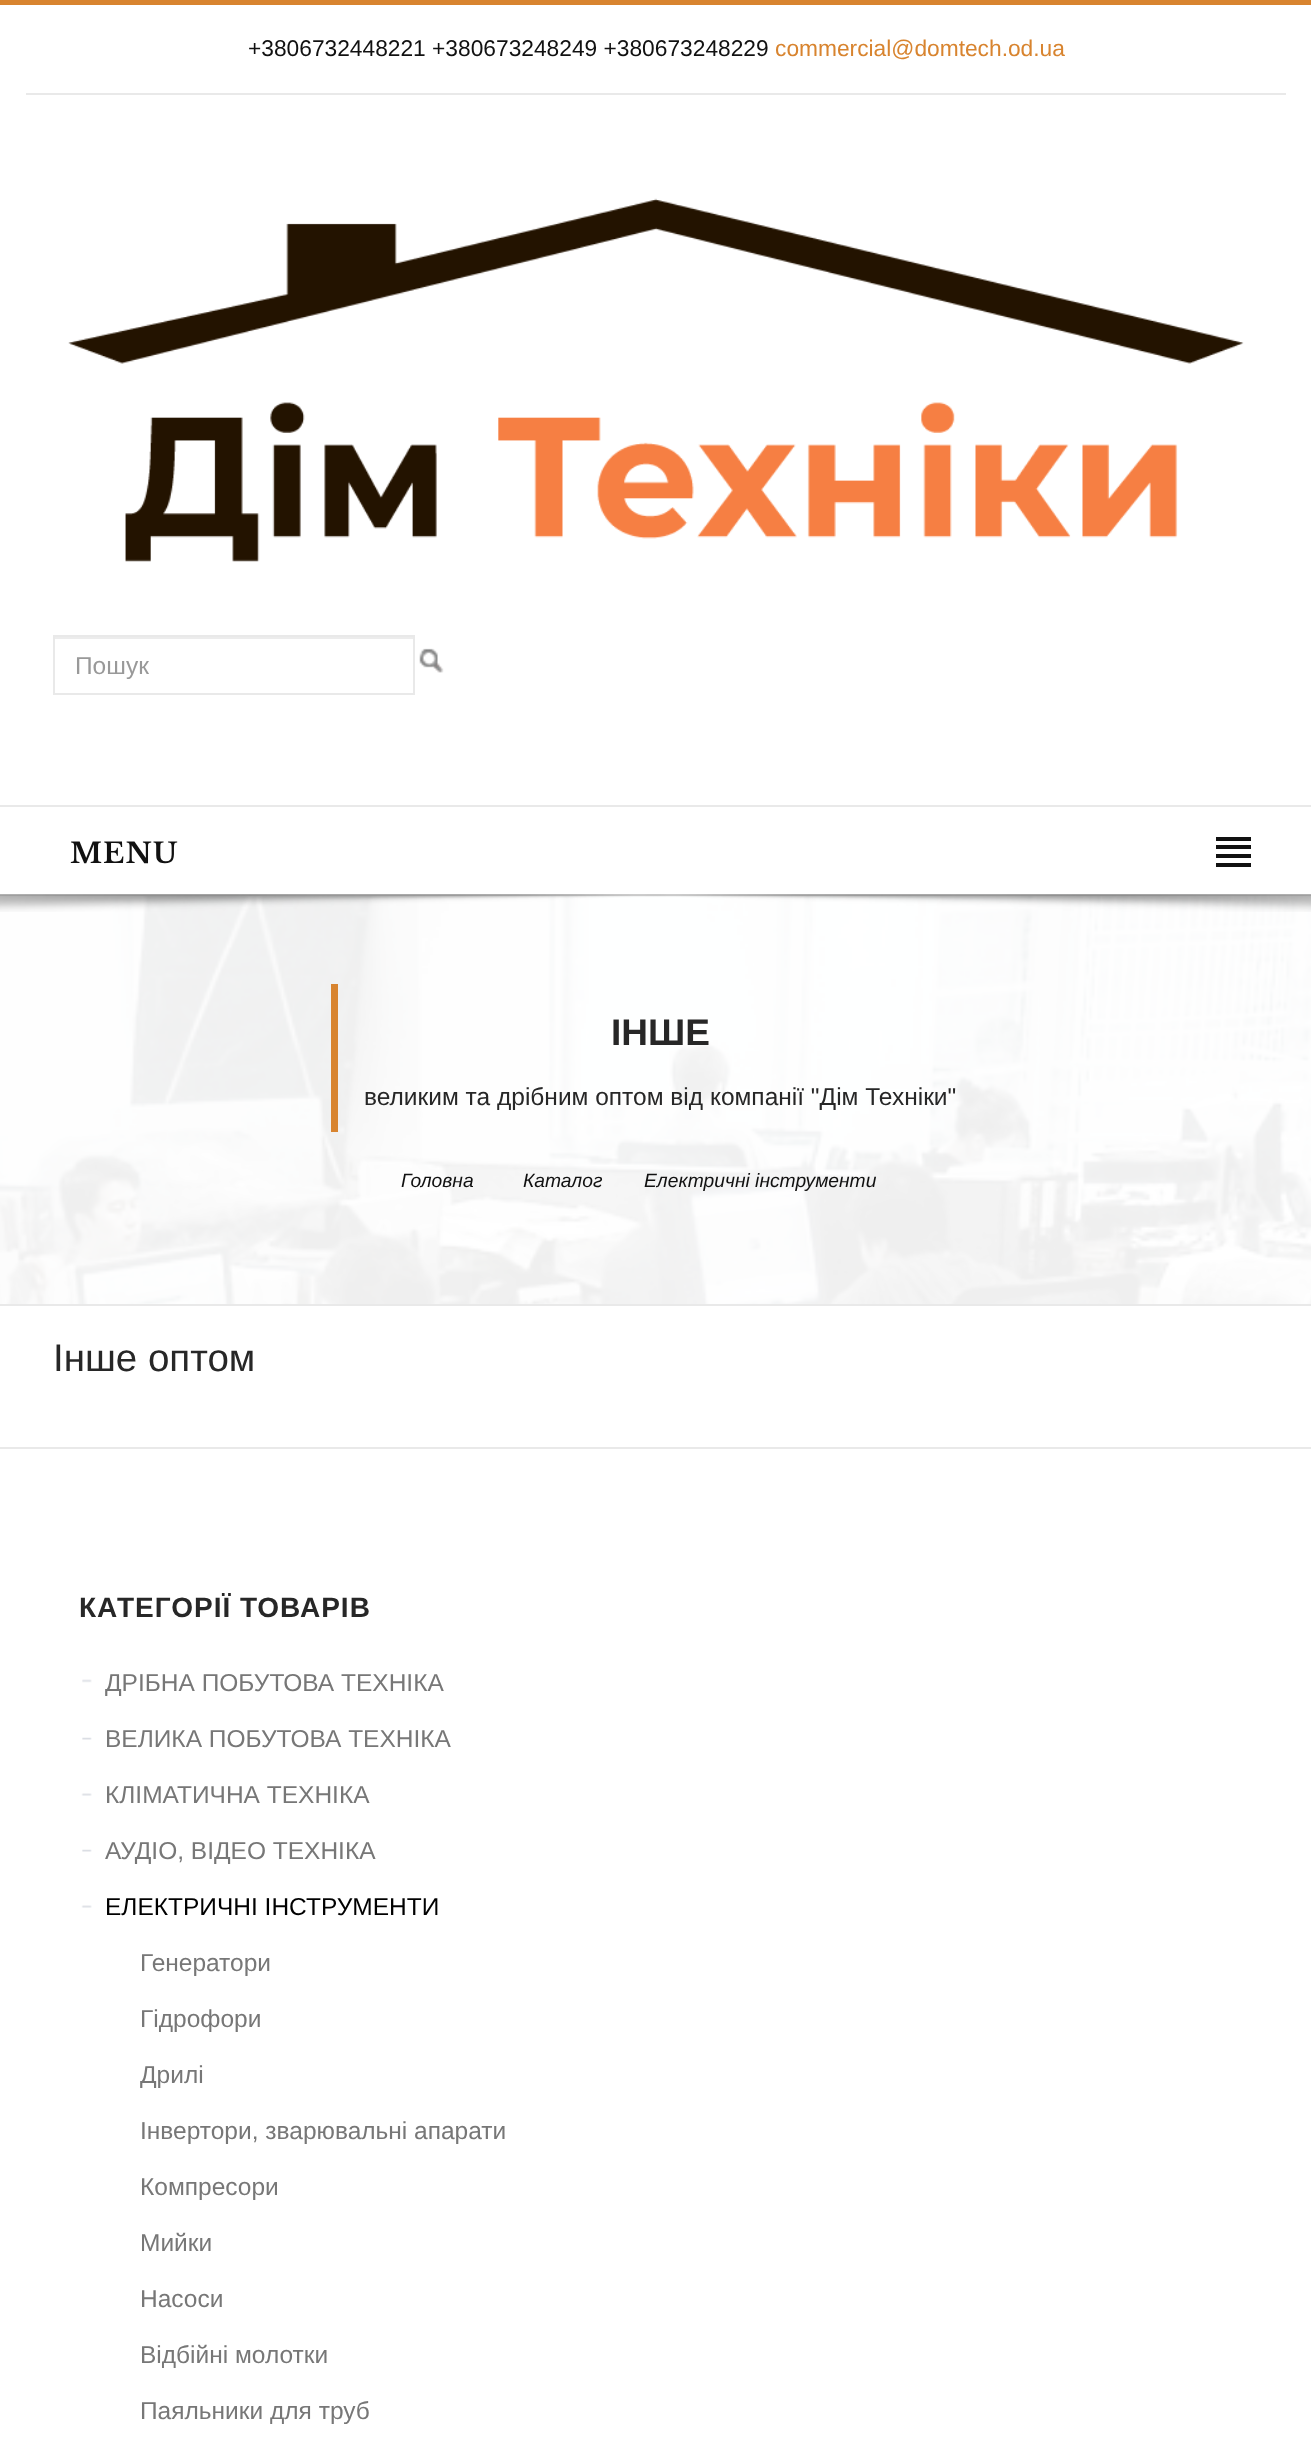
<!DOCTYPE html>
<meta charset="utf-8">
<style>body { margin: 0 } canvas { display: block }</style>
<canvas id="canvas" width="1311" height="2437"></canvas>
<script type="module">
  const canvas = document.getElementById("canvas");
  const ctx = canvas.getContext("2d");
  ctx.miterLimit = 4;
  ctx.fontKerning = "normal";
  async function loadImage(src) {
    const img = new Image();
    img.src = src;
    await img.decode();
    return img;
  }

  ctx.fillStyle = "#ffffff";
  ctx.fillRect(0, 0, 1311, 2437);
  ctx.fillStyle = "#d8842f";
  ctx.fillRect(0, 0, 1311, 5);
  ctx.fillStyle = "#e9e9e9";
  ctx.fillRect(0, 894, 1311, 2);
  ctx.fillRect(26, 93, 1260, 2);
  ctx.font = "22.75px Liberation Sans";
  ctx.fillStyle = "#111111";
  ctx.fillText("+3806732448221 +380673248249 +380673248229", 248, 56);
  ctx.fillStyle = "#d8842f";
  ctx.fillText("commercial@domtech.od.ua", 775, 56);
  ctx.drawImage(await loadImage("img1.png"), 68, 198, 1176, 364);
  ctx.fillStyle = "#ececec";
  ctx.fillRect(54, 637, 359, 2);
  ctx.strokeStyle = "#e9e9e9";
  ctx.lineWidth = 2;
  ctx.strokeRect(54, 636, 360, 58);
  ctx.font = "24.5px Liberation Sans";
  ctx.fillStyle = "#999999";
  ctx.fillText("Пошук", 75, 674);
  ctx.drawImage(await loadImage("img2.png"), 419, 648, 25, 25);
  ctx.fillStyle = "#e9e9e9";
  ctx.fillRect(0, 805, 1311, 2);
  ctx.letterSpacing = "1px";
  ctx.font = "bold 28px Libre Baskerville";
  ctx.fillStyle = "#111111";
  ctx.fillText("MENU", 70, 863);
  ctx.fillRect(1216, 837, 35, 4);
  ctx.fillRect(1216, 845, 35, 4);
  ctx.fillRect(1216, 854, 35, 4);
  ctx.fillRect(1216, 863, 35, 4);
  ctx.drawImage(await loadImage("img4.png"), 0, 896, 1311, 408);
  ctx.drawImage(await loadImage("img3.png"), 0, 894, 1311, 18);
  ctx.fillStyle = "#d8842f";
  ctx.fillRect(331, 984, 7, 148);
  ctx.letterSpacing = "0px";
  ctx.font = "bold 37px Liberation Sans";
  ctx.fillStyle = "#272727";
  ctx.fillText("ІНШЕ", 611, 1045);
  ctx.font = "24.5px Liberation Sans";
  ctx.fillText("великим та дрібним оптом від компанії \"Дім Техніки\"", 364, 1105);
  ctx.font = "italic 19.25px Liberation Sans";
  ctx.fillStyle = "#111111";
  ctx.fillText("Головна", 401, 1187);
  ctx.fillText("Каталог", 523, 1187);
  ctx.fillText("Електричні інструменти", 644, 1187);
  ctx.fillStyle = "#e9e9e9";
  ctx.fillRect(0, 1304, 1311, 2);
  ctx.font = "38.5px Liberation Sans";
  ctx.fillStyle = "#272727";
  ctx.fillText("Інше оптом", 53, 1371);
  ctx.fillStyle = "#e9e9e9";
  ctx.fillRect(0, 1447, 1311, 2);
  ctx.letterSpacing = "1px";
  ctx.font = "bold 28px Liberation Sans";
  ctx.fillStyle = "#272727";
  ctx.fillText("КАТЕГОРІЇ ТОВАРІВ", 79, 1617);
  ctx.drawImage(await loadImage("img5.png"), 82, 1679, 10, 4);
  ctx.letterSpacing = "0px";
  ctx.font = "24.5px Liberation Sans";
  ctx.fillStyle = "#777777";
  ctx.fillText("ДРІБНА ПОБУТОВА ТЕХНІКА", 105, 1691);
  ctx.drawImage(await loadImage("img6.png"), 82, 1737, 10, 3);
  ctx.fillText("ВЕЛИКА ПОБУТОВА ТЕХНІКА", 105, 1747);
  ctx.drawImage(await loadImage("img7.png"), 81, 1793, 11, 3);
  ctx.fillText("КЛІМАТИЧНА ТЕХНІКА", 105, 1803);
  ctx.drawImage(await loadImage("img6.png"), 82, 1849, 10, 3);
  ctx.fillText("АУДІО, ВІДЕО ТЕХНІКА", 105, 1859);
  ctx.drawImage(await loadImage("img7.png"), 81, 1905, 11, 3);
  ctx.fillStyle = "#000000";
  ctx.fillText("ЕЛЕКТРИЧНІ ІНСТРУМЕНТИ", 105, 1915);
  ctx.fillStyle = "#777777";
  ctx.fillText("Генератори", 140, 1971);
  ctx.fillText("Гідрофори", 140, 2027);
  ctx.fillText("Дрилі", 140, 2083);
  ctx.fillText("Інвертори, зварювальні апарати", 140, 2139);
  ctx.fillText("Компресори", 140, 2195);
  ctx.fillText("Мийки", 140, 2251);
  ctx.fillText("Насоси", 140, 2307);
  ctx.fillText("Відбійні молотки", 140, 2363);
  ctx.fillText("Паяльники для труб", 140, 2419);
</script>
